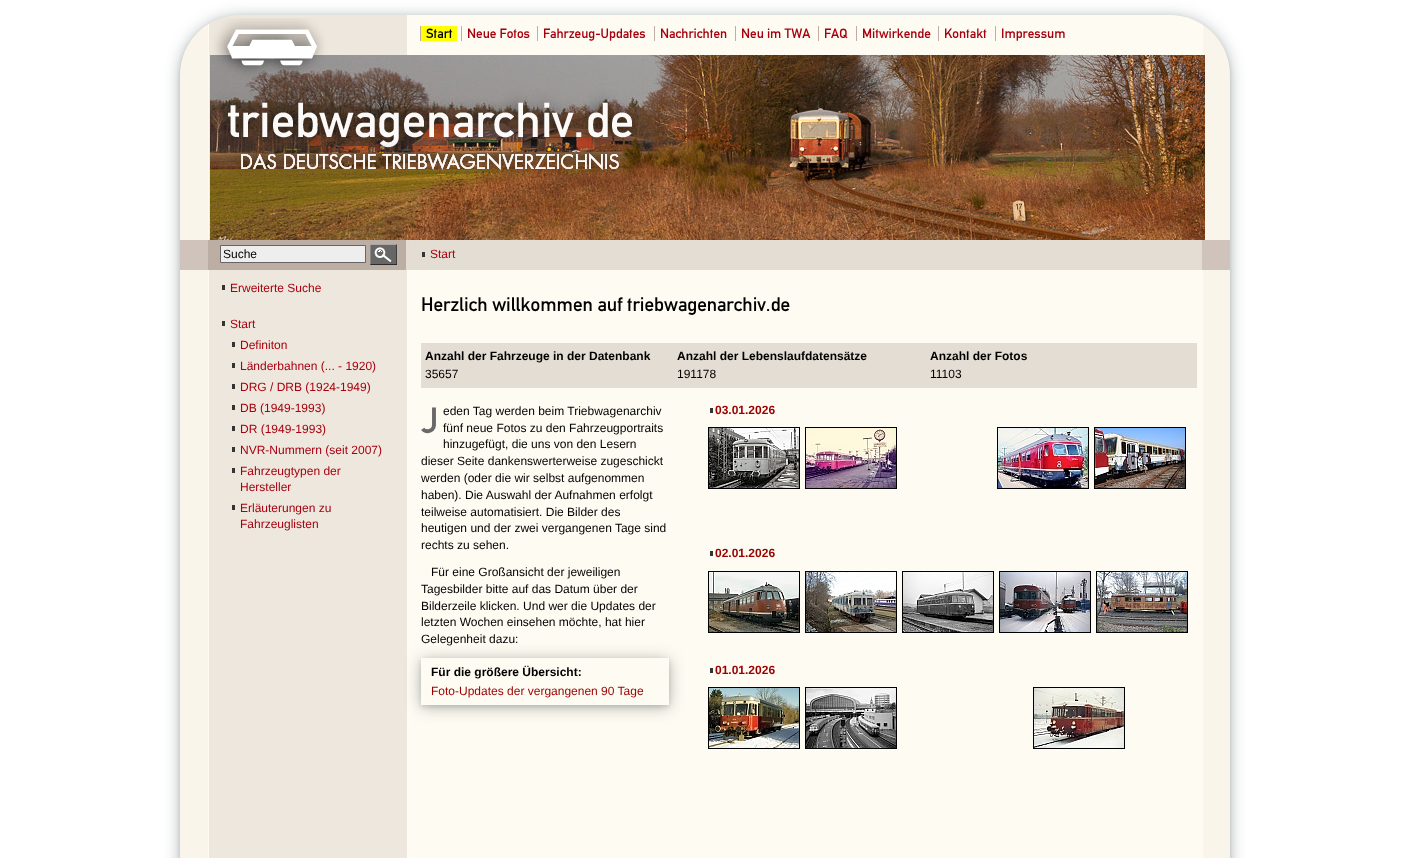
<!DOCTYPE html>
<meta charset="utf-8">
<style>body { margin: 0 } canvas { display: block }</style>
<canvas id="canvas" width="1410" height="858"></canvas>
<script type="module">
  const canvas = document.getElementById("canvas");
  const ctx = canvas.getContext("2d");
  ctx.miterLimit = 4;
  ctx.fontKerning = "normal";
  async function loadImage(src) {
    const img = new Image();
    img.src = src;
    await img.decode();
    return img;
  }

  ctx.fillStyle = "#ffffff";
  ctx.fillRect(0, 0, 1410, 858);
  ctx.fillStyle = "rgba(14, 30, 37, 0.32)";
  ctx.filter = "blur(8px)";
  ctx.beginPath();
  ctx.roundRect(180, 17, 1050, 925, 60);
  ctx.fill();
  ctx.filter = "none";
  ctx.fillStyle = "rgba(14, 30, 37, 0.12)";
  ctx.filter = "blur(2px)";
  ctx.beginPath();
  ctx.roundRect(180, 17, 1050, 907, 60);
  ctx.fill();
  ctx.filter = "none";
  ctx.drawImage(await loadImage("img1.png"), 180, 15, 1050, 843);
  ctx.drawImage(await loadImage("img2.png"), 210, 18, 995, 222);
  ctx.fillStyle = "#ffff00";
  ctx.fillRect(421, 26, 36, 15);
  ctx.font = "13.25px 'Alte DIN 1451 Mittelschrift'";
  ctx.fillStyle = "#000000";
  ctx.fillText("Start", 426, 38);
  ctx.fillStyle = "#c1ada4";
  ctx.fillRect(420, 26, 1, 15);
  ctx.fillStyle = "#a7000e";
  ctx.fillText("Neue Fotos", 467, 38);
  ctx.fillStyle = "#c1ada4";
  ctx.fillRect(461, 26, 1, 15);
  ctx.fillStyle = "#a7000e";
  ctx.fillText("Fahrzeug-Updates", 543, 38);
  ctx.fillStyle = "#c1ada4";
  ctx.fillRect(537, 26, 1, 15);
  ctx.fillStyle = "#a7000e";
  ctx.fillText("Nachrichten", 660, 38);
  ctx.fillStyle = "#c1ada4";
  ctx.fillRect(654, 26, 1, 15);
  ctx.fillStyle = "#a7000e";
  ctx.fillText("Neu im TWA", 741, 38);
  ctx.fillStyle = "#c1ada4";
  ctx.fillRect(735, 26, 1, 15);
  ctx.fillStyle = "#a7000e";
  ctx.fillText("FAQ", 824, 38);
  ctx.fillStyle = "#c1ada4";
  ctx.fillRect(818, 26, 1, 15);
  ctx.fillStyle = "#a7000e";
  ctx.fillText("Mitwirkende", 862, 38);
  ctx.fillStyle = "#c1ada4";
  ctx.fillRect(856, 26, 1, 15);
  ctx.fillStyle = "#a7000e";
  ctx.fillText("Kontakt", 944, 38);
  ctx.fillStyle = "#c1ada4";
  ctx.fillRect(938, 26, 1, 15);
  ctx.fillStyle = "#a7000e";
  ctx.fillText("Impressum", 1001, 38);
  ctx.fillStyle = "#c1ada4";
  ctx.fillRect(995, 26, 1, 15);
  ctx.drawImage(await loadImage("img3.png"), 180, 240, 1050, 30);
  ctx.fillStyle = "#eeeeee";
  ctx.beginPath();
  ctx.rect(220.5, 245.5, 145, 17);
  ctx.fill();
  ctx.strokeStyle = "#666666";
  ctx.stroke();
  ctx.font = "12px Liberation Sans";
  ctx.fillStyle = "#000000";
  ctx.fillText("Suche", 223, 258);
  ctx.drawImage(await loadImage("img4.png"), 370, 244, 27, 21);
  ctx.fillStyle = "#a7000e";
  ctx.fillText("Start", 430, 258);
  ctx.fillStyle = "#333434";
  ctx.fillRect(422, 252, 3, 5);
  ctx.fillRect(222, 285, 3, 5);
  ctx.fillStyle = "#a7000e";
  ctx.fillText("Erweiterte Suche", 230, 292);
  ctx.fillStyle = "#333434";
  ctx.fillRect(222, 321, 3, 5);
  ctx.fillStyle = "#a7000e";
  ctx.fillText("Start", 230, 328);
  ctx.fillStyle = "#333434";
  ctx.fillRect(232, 342, 3, 5);
  ctx.fillStyle = "#a7000e";
  ctx.fillText("Definiton", 240, 349);
  ctx.fillStyle = "#333434";
  ctx.fillRect(232, 363, 3, 5);
  ctx.fillStyle = "#a7000e";
  ctx.fillText("Länderbahnen (... - 1920)", 240, 370);
  ctx.fillStyle = "#333434";
  ctx.fillRect(232, 384, 3, 5);
  ctx.fillStyle = "#a7000e";
  ctx.fillText("DRG / DRB (1924-1949)", 240, 391);
  ctx.fillStyle = "#333434";
  ctx.fillRect(232, 405, 3, 5);
  ctx.fillStyle = "#a7000e";
  ctx.fillText("DB (1949-1993)", 240, 412);
  ctx.fillStyle = "#333434";
  ctx.fillRect(232, 426, 3, 5);
  ctx.fillStyle = "#a7000e";
  ctx.fillText("DR (1949-1993)", 240, 433);
  ctx.fillStyle = "#333434";
  ctx.fillRect(232, 447, 3, 5);
  ctx.fillStyle = "#a7000e";
  ctx.fillText("NVR-Nummern (seit 2007)", 240, 454);
  ctx.fillStyle = "#333434";
  ctx.fillRect(232, 468, 3, 5);
  ctx.fillStyle = "#a7000e";
  ctx.fillText("Fahrzeugtypen der", 240, 475);
  ctx.fillText("Hersteller", 240, 491);
  ctx.fillStyle = "#333434";
  ctx.fillRect(232, 505, 3, 5);
  ctx.fillStyle = "#a7000e";
  ctx.fillText("Erläuterungen zu", 240, 512);
  ctx.fillText("Fahrzeuglisten", 240, 528);
  ctx.font = "19.25px 'Alte DIN 1451 Mittelschrift'";
  ctx.fillStyle = "#000000";
  ctx.fillText("Herzlich willkommen auf triebwagenarchiv.de", 421, 311);
  ctx.fillStyle = "#e4ddd3";
  ctx.fillRect(421, 343, 776, 45);
  ctx.font = "bold 12px Liberation Sans";
  ctx.fillStyle = "#000000";
  ctx.fillText("Anzahl der Fahrzeuge in der Datenbank", 425, 360);
  ctx.fillText("Anzahl der Lebenslaufdatensätze", 677, 360);
  ctx.fillText("Anzahl der Fotos", 930, 360);
  ctx.font = "12px Liberation Sans";
  ctx.fillText("35657", 425, 378);
  ctx.fillText("191178", 677, 378);
  ctx.fillText("11103", 930, 378);
  ctx.fillText("eden Tag werden beim Triebwagenarchiv", 443, 415);
  ctx.fillText("fünf neue Fotos zu den Fahrzeugportraits", 443, 432);
  ctx.fillText("hinzugefügt, die uns von den Lesern", 443, 448);
  ctx.fillText("dieser Seite dankenswerterweise zugeschickt", 421, 465);
  ctx.fillText("werden (oder die wir selbst aufgenommen", 421, 482);
  ctx.fillText("haben). Die Auswahl der Aufnahmen erfolgt", 421, 499);
  ctx.fillText("teilweise automatisiert. Die Bilder des", 421, 516);
  ctx.fillText("heutigen und der zwei vergangenen Tage sind", 421, 532);
  ctx.fillText("rechts zu sehen.", 421, 549);
  ctx.font = "36px 'Alte DIN 1451 Mittelschrift'";
  ctx.fillStyle = "#696969";
  ctx.fillText("J", 421, 433);
  ctx.font = "12px Liberation Sans";
  ctx.fillStyle = "#000000";
  ctx.fillText("Für eine Großansicht der jeweiligen", 431, 576);
  ctx.fillText("Tagesbilder bitte auf das Datum über der", 421, 593);
  ctx.fillText("Bilderzeile klicken. Und wer die Updates der", 421, 610);
  ctx.fillText("letzten Wochen einsehen möchte, hat hier", 421, 626);
  ctx.save();
  ctx.beginPath();
  ctx.moveTo(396, 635);
  ctx.lineTo(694, 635);
  ctx.lineTo(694, 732);
  ctx.lineTo(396, 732);
  ctx.closePath();
  ctx.moveTo(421, 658);
  ctx.lineTo(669, 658);
  ctx.lineTo(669, 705);
  ctx.lineTo(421, 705);
  ctx.closePath();
  ctx.clip("evenodd");
  ctx.fillStyle = "rgba(14, 30, 37, 0.32)";
  ctx.filter = "blur(8px)";
  ctx.beginPath();
  ctx.rect(421, 660, 248, 47);
  ctx.fill();
  ctx.filter = "none";
  ctx.restore();
  ctx.fillText("Gelegenheit dazu:", 421, 643);
  ctx.save();
  ctx.beginPath();
  ctx.moveTo(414, 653);
  ctx.lineTo(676, 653);
  ctx.lineTo(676, 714);
  ctx.lineTo(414, 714);
  ctx.closePath();
  ctx.moveTo(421, 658);
  ctx.lineTo(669, 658);
  ctx.lineTo(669, 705);
  ctx.lineTo(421, 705);
  ctx.closePath();
  ctx.clip("evenodd");
  ctx.fillStyle = "rgba(14, 30, 37, 0.12)";
  ctx.filter = "blur(2px)";
  ctx.beginPath();
  ctx.rect(421, 660, 248, 47);
  ctx.fill();
  ctx.filter = "none";
  ctx.restore();
  ctx.font = "bold 12px Liberation Sans";
  ctx.fillText("Für die größere Übersicht:", 431, 676);
  ctx.font = "12px Liberation Sans";
  ctx.fillStyle = "#990000";
  ctx.fillText("Foto-Updates der vergangenen 90 Tage", 431, 695);
  ctx.font = "bold 12px Liberation Sans";
  ctx.fillText("03.01.2026", 715, 414);
  ctx.fillStyle = "#333434";
  ctx.fillRect(710, 408, 3, 5);
  ctx.strokeStyle = "#000000";
  ctx.strokeRect(708.5, 427.5, 91, 61);
  ctx.drawImage(await loadImage("img5.png"), 709, 428, 90, 60);
  ctx.strokeRect(805.5, 427.5, 91, 61);
  ctx.drawImage(await loadImage("img6.png"), 806, 428, 90, 60);
  ctx.strokeRect(997.5, 427.5, 91, 61);
  ctx.drawImage(await loadImage("img7.png"), 998, 428, 90, 60);
  ctx.strokeRect(1094.5, 427.5, 91, 61);
  ctx.drawImage(await loadImage("img8.png"), 1095, 428, 90, 60);
  ctx.fillStyle = "#990000";
  ctx.fillText("02.01.2026", 715, 557);
  ctx.fillStyle = "#333434";
  ctx.fillRect(710, 551, 3, 5);
  ctx.strokeRect(708.5, 571.5, 91, 61);
  ctx.drawImage(await loadImage("img9.png"), 709, 572, 90, 60);
  ctx.strokeRect(805.5, 571.5, 91, 61);
  ctx.drawImage(await loadImage("img10.png"), 806, 572, 90, 60);
  ctx.strokeRect(902.5, 571.5, 91, 61);
  ctx.drawImage(await loadImage("img11.png"), 903, 572, 90, 60);
  ctx.strokeRect(999.5, 571.5, 91, 61);
  ctx.drawImage(await loadImage("img12.png"), 1000, 572, 90, 60);
  ctx.strokeRect(1096.5, 571.5, 91, 61);
  ctx.drawImage(await loadImage("img13.png"), 1097, 572, 90, 60);
  ctx.fillStyle = "#990000";
  ctx.fillText("01.01.2026", 715, 674);
  ctx.fillStyle = "#333434";
  ctx.fillRect(710, 668, 3, 5);
  ctx.strokeRect(708.5, 687.5, 91, 61);
  ctx.drawImage(await loadImage("img14.png"), 709, 688, 90, 60);
  ctx.strokeRect(805.5, 687.5, 91, 61);
  ctx.drawImage(await loadImage("img15.png"), 806, 688, 90, 60);
  ctx.strokeRect(1033.5, 687.5, 91, 61);
  ctx.drawImage(await loadImage("img16.png"), 1034, 688, 90, 60);
</script>
